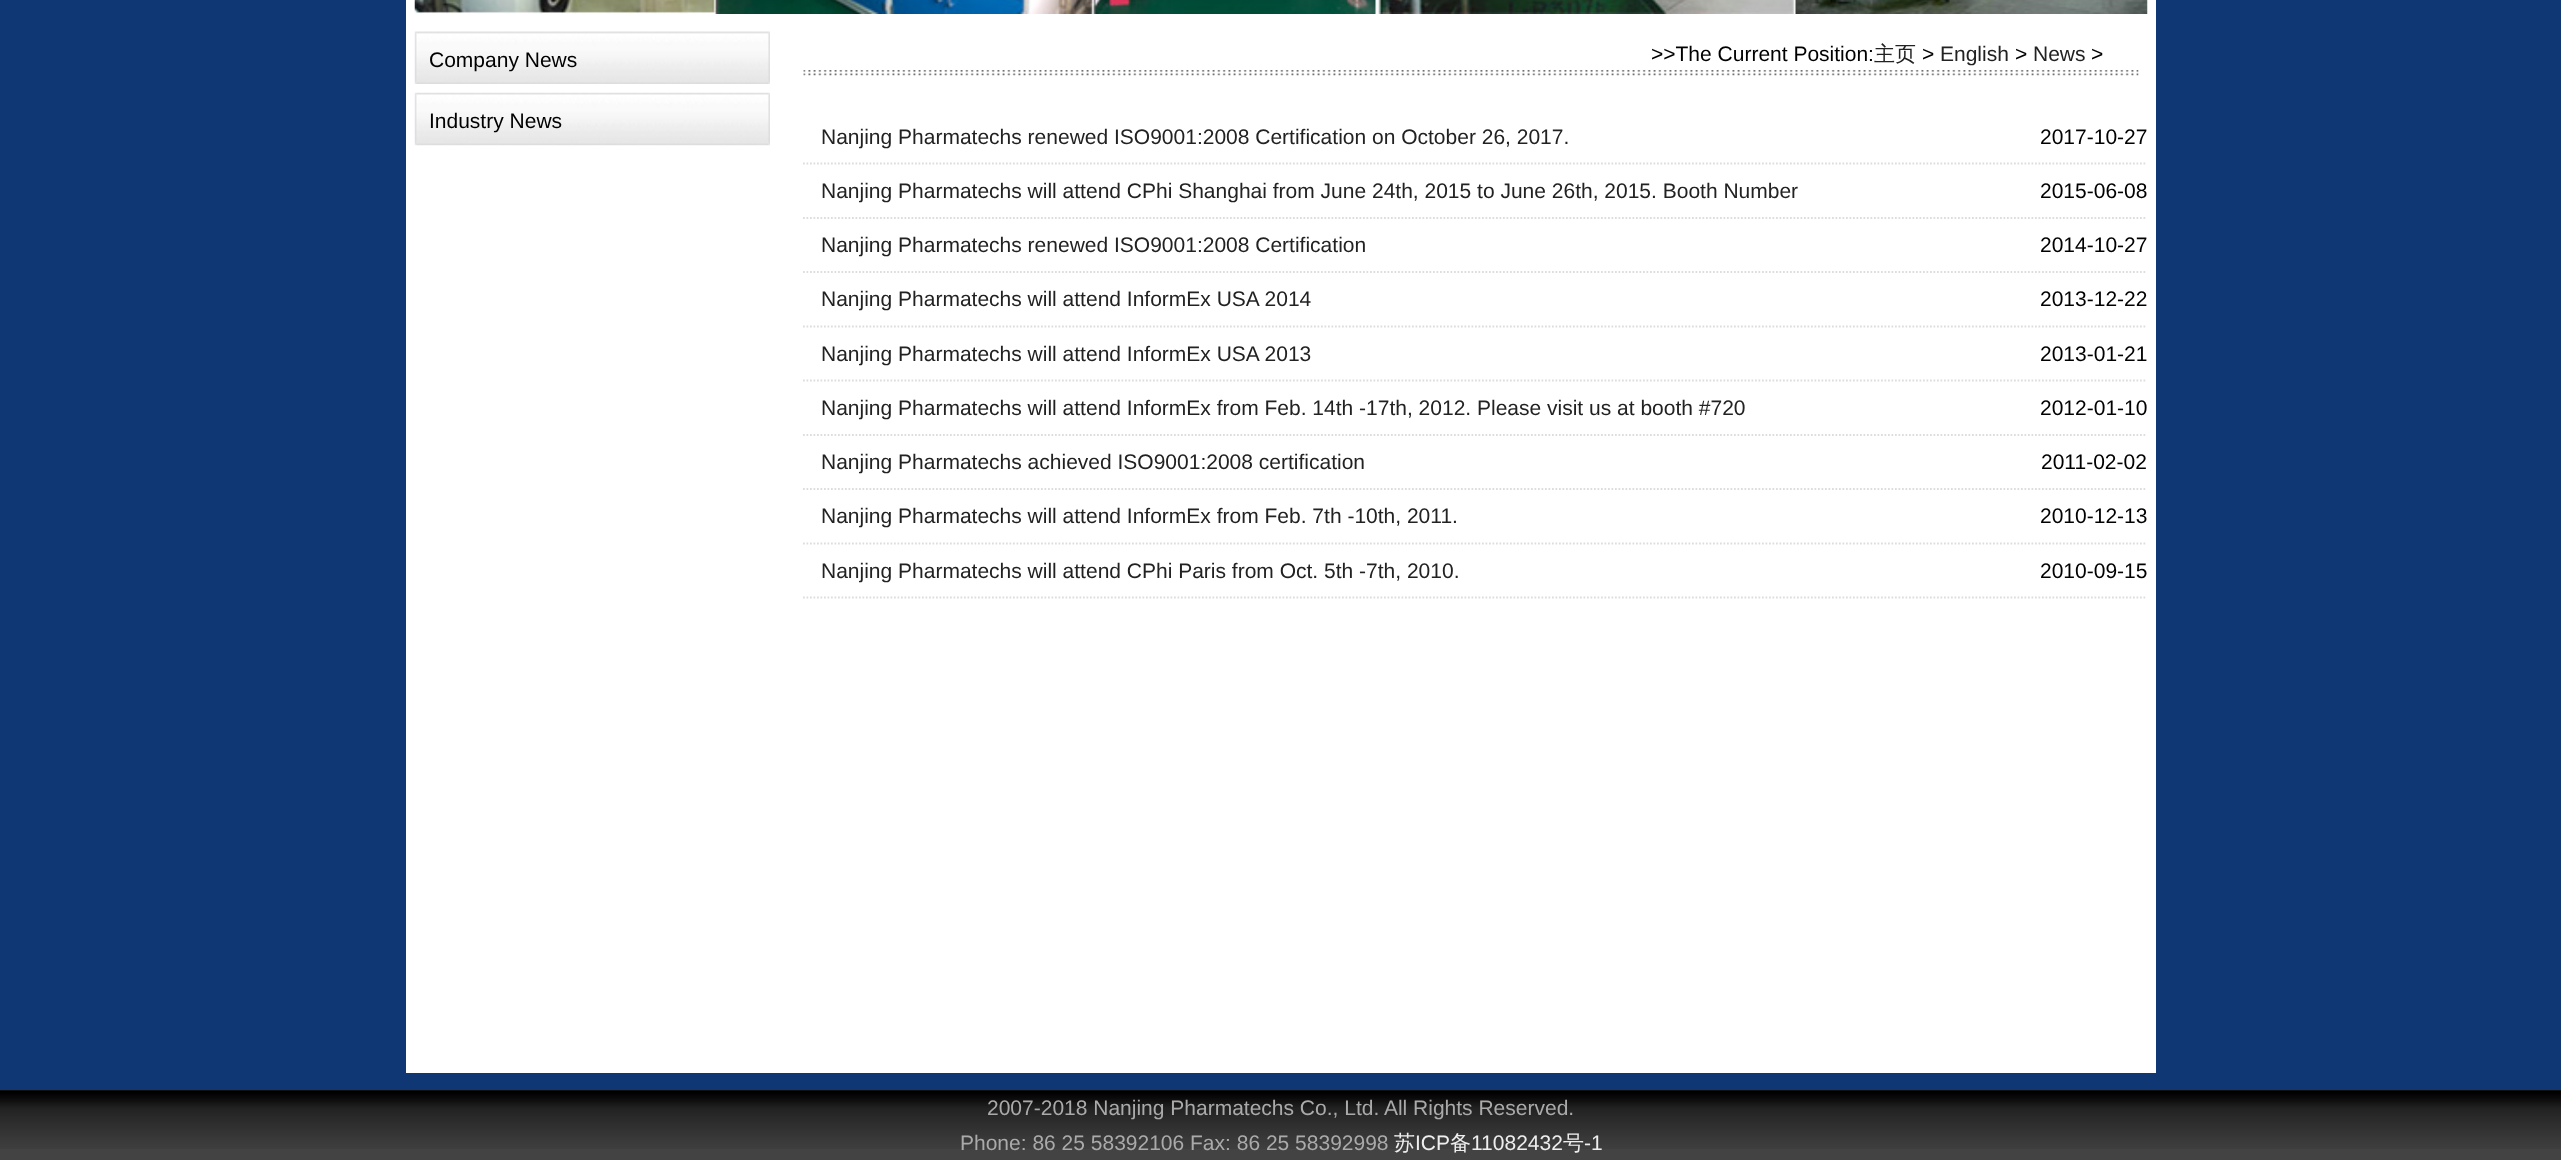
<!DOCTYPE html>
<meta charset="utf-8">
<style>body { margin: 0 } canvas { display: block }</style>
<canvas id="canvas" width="2561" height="1160"></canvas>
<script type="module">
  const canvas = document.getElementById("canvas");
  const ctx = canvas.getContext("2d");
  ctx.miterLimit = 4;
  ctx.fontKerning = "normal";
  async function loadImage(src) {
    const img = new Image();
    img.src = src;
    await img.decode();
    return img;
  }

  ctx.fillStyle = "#0e3773";
  ctx.fillRect(0, 0, 2561, 1160);
  ctx.fillStyle = "#ffffff";
  ctx.fillRect(406, 0, 1750, 1073);
  ctx.drawImage(await loadImage("img1.png"), 414, 0, 1734, 14);
  ctx.drawImage(await loadImage("img2.png"), 414, 31, 356, 53);
  ctx.font = "21px Liberation Sans";
  ctx.fillStyle = "#000000";
  ctx.fillText("Company News", 429, 67);
  ctx.drawImage(await loadImage("img3.png"), 414, 92, 356, 54);
  ctx.fillText("Industry News", 429, 128);
  ctx.drawImage(await loadImage("img4.png"), 803, 70, 1336, 6);
  ctx.fillText(">>The Current Position:", 1651, 61);
  ctx.font = "500 21px WenQuanYi Zen Hei";
  ctx.fillStyle = "#222222";
  ctx.fillText("主页", 1874, 61);
  ctx.font = "21px Liberation Sans";
  ctx.fillStyle = "#000000";
  ctx.fillText(">", 1922, 61);
  ctx.fillStyle = "#222222";
  ctx.fillText("English", 1940, 61);
  ctx.fillStyle = "#000000";
  ctx.fillText(">", 2015, 61);
  ctx.fillStyle = "#222222";
  ctx.fillText("News", 2033, 61);
  ctx.fillStyle = "#000000";
  ctx.fillText(">", 2091, 61);
  ctx.beginPath();
  ctx.moveTo(803, 163.5);
  ctx.lineTo(2147, 163.5);
  ctx.strokeStyle = "#dddddd";
  ctx.lineWidth = 1.8;
  ctx.setLineDash([1.75, 1.75]);
  ctx.stroke();
  ctx.fillStyle = "#222222";
  ctx.fillText("Nanjing Pharmatechs renewed ISO9001:2008 Certification on October 26, 2017.", 821, 144);
  ctx.fillStyle = "#000000";
  ctx.fillText("2017-10-27", 2040, 144);
  ctx.beginPath();
  ctx.moveTo(803, 218);
  ctx.lineTo(2147, 218);
  ctx.stroke();
  ctx.fillStyle = "#222222";
  ctx.fillText("Nanjing Pharmatechs will attend CPhi Shanghai from June 24th, 2015 to June 26th, 2015. Booth Number", 821, 198);
  ctx.fillStyle = "#000000";
  ctx.fillText("2015-06-08", 2040, 198);
  ctx.beginPath();
  ctx.moveTo(803, 272);
  ctx.lineTo(2147, 272);
  ctx.stroke();
  ctx.fillStyle = "#222222";
  ctx.fillText("Nanjing Pharmatechs renewed ISO9001:2008 Certification", 821, 252);
  ctx.fillStyle = "#000000";
  ctx.fillText("2014-10-27", 2040, 252);
  ctx.beginPath();
  ctx.moveTo(803, 326.5);
  ctx.lineTo(2147, 326.5);
  ctx.stroke();
  ctx.fillStyle = "#222222";
  ctx.fillText("Nanjing Pharmatechs will attend InformEx USA 2014", 821, 306);
  ctx.fillStyle = "#000000";
  ctx.fillText("2013-12-22", 2040, 306);
  ctx.beginPath();
  ctx.moveTo(803, 380.5);
  ctx.lineTo(2147, 380.5);
  ctx.stroke();
  ctx.fillStyle = "#222222";
  ctx.fillText("Nanjing Pharmatechs will attend InformEx USA 2013", 821, 361);
  ctx.fillStyle = "#000000";
  ctx.fillText("2013-01-21", 2040, 361);
  ctx.beginPath();
  ctx.moveTo(803, 435);
  ctx.lineTo(2147, 435);
  ctx.stroke();
  ctx.fillStyle = "#222222";
  ctx.fillText("Nanjing Pharmatechs will attend InformEx from Feb. 14th -17th, 2012. Please visit us at booth #720", 821, 415);
  ctx.fillStyle = "#000000";
  ctx.fillText("2012-01-10", 2040, 415);
  ctx.beginPath();
  ctx.moveTo(803, 489);
  ctx.lineTo(2147, 489);
  ctx.stroke();
  ctx.fillStyle = "#222222";
  ctx.fillText("Nanjing Pharmatechs achieved ISO9001:2008 certification", 821, 469);
  ctx.fillStyle = "#000000";
  ctx.fillText("2011-02-02", 2041, 469);
  ctx.beginPath();
  ctx.moveTo(803, 543.5);
  ctx.lineTo(2147, 543.5);
  ctx.stroke();
  ctx.fillStyle = "#222222";
  ctx.fillText("Nanjing Pharmatechs will attend InformEx from Feb. 7th -10th, 2011.", 821, 523);
  ctx.fillStyle = "#000000";
  ctx.fillText("2010-12-13", 2040, 523);
  ctx.beginPath();
  ctx.moveTo(803, 597.5);
  ctx.lineTo(2147, 597.5);
  ctx.stroke();
  ctx.fillStyle = "#222222";
  ctx.fillText("Nanjing Pharmatechs will attend CPhi Paris from Oct. 5th -7th, 2010.", 821, 578);
  ctx.fillStyle = "#000000";
  ctx.fillText("2010-09-15", 2040, 578);
  ctx.fillStyle = "#434343";
  ctx.fillRect(0, 1090, 2561, 70);
  ctx.drawImage(await loadImage("img5.png"), 0, 1090, 2561, 59);
  ctx.fillStyle = "#aaaaaa";
  ctx.fillText("2007-2018 Nanjing Pharmatechs Co., Ltd. All Rights Reserved.", 987, 1115);
  ctx.fillText("Phone: 86 25 58392106 Fax: 86 25 58392998", 960, 1150);
  ctx.font = "500 21px WenQuanYi Zen Hei";
  ctx.fillStyle = "#eeeeee";
  ctx.fillText("苏", 1394, 1150);
  ctx.font = "21px Liberation Sans";
  ctx.fillText("ICP", 1415, 1150);
  ctx.font = "500 21px WenQuanYi Zen Hei";
  ctx.fillText("备", 1450, 1150);
  ctx.font = "21px Liberation Sans";
  ctx.fillText("11082432", 1471, 1150);
  ctx.font = "500 21px WenQuanYi Zen Hei";
  ctx.fillText("号", 1563, 1150);
  ctx.font = "21px Liberation Sans";
  ctx.fillText("-1", 1584, 1150);
</script>
